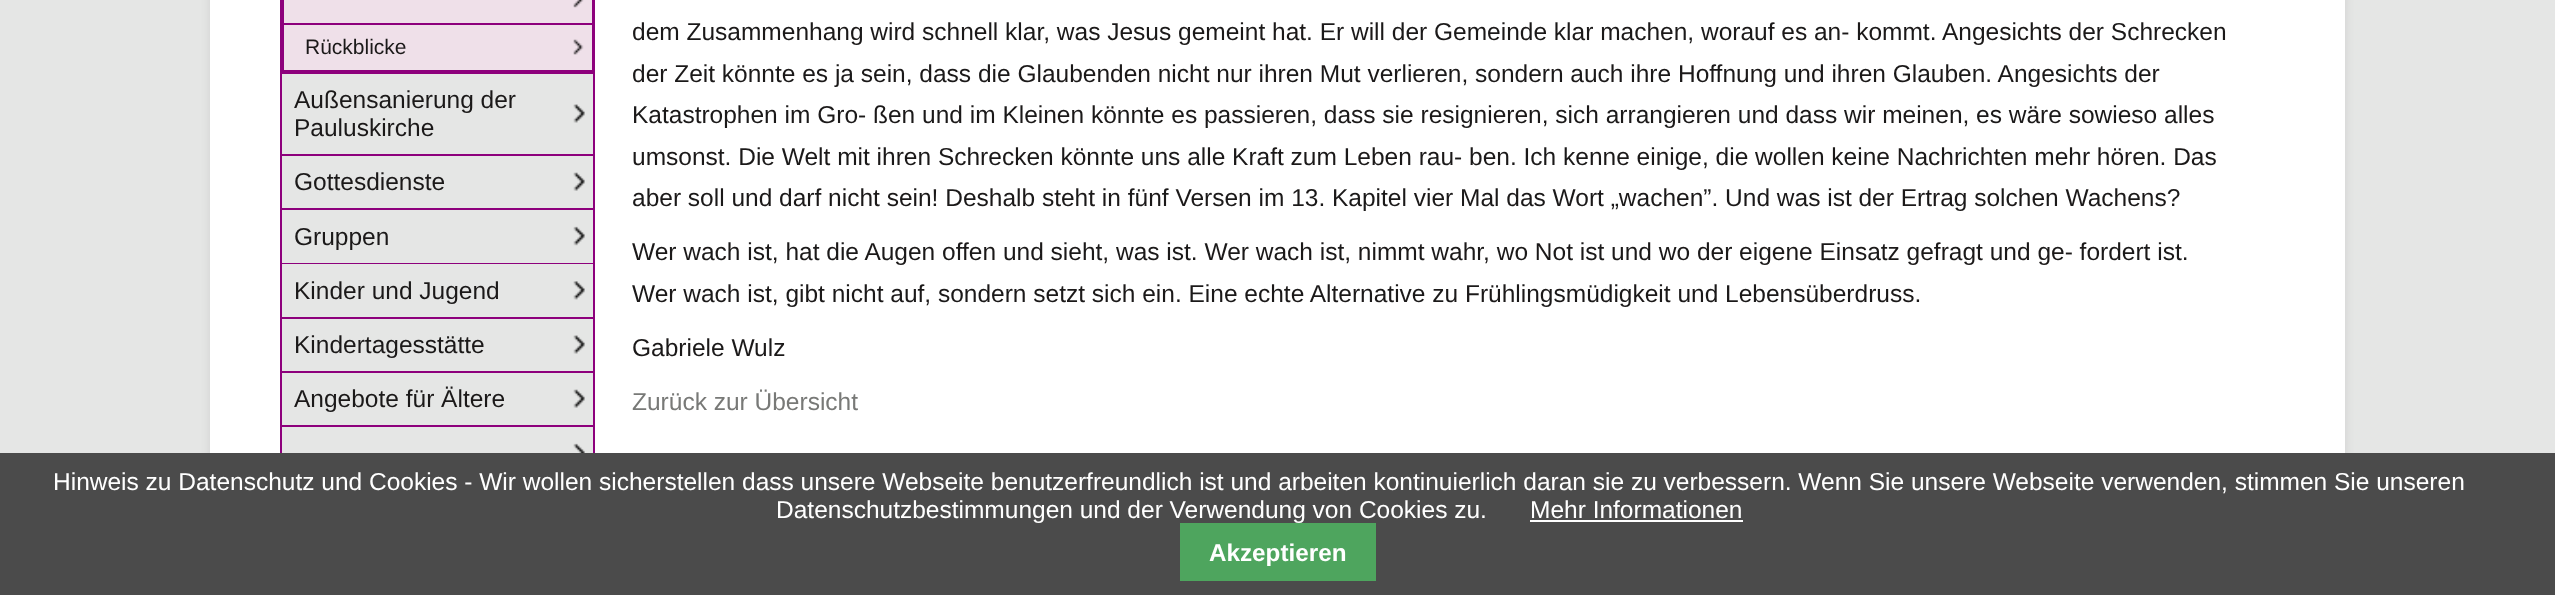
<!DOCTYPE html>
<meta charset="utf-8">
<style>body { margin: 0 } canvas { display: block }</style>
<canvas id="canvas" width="2555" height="595"></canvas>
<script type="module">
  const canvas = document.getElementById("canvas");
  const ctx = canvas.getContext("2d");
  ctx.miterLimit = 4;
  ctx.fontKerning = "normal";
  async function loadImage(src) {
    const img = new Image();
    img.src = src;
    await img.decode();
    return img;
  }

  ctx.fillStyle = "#e5e6e5";
  ctx.fillRect(0, 0, 2555, 595);
  ctx.fillStyle = "rgba(159, 160, 158, 0.3)";
  ctx.filter = "blur(5px)";
  ctx.beginPath();
  ctx.rect(210, -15, 2135, 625);
  ctx.fill();
  ctx.filter = "none";
  ctx.fillStyle = "#ffffff";
  ctx.fillRect(210, 0, 2135, 453);
  ctx.fillStyle = "#8d007c";
  ctx.fillRect(280, 0, 315, 74);
  ctx.fillStyle = "#efe0e9";
  ctx.fillRect(284, 0, 308, 23);
  ctx.drawImage(await loadImage("img1.png"), 573, 0, 11, 8);
  ctx.fillRect(284, 25, 308, 45);
  ctx.drawImage(await loadImage("img2.png"), 573, 39, 11, 16);
  ctx.font = "21px Liberation Sans";
  ctx.fillStyle = "#1b1919";
  ctx.fillText("Rückblicke", 305, 54);
  ctx.fillStyle = "#e5e6e5";
  ctx.fillRect(282, 74, 311, 80);
  ctx.fillStyle = "#8d007c";
  ctx.fillRect(593, 74, 2, 379);
  ctx.fillRect(280, 154, 315, 2);
  ctx.fillRect(280, 74, 2, 82);
  ctx.drawImage(await loadImage("img3.png"), 573, 104, 12, 19);
  ctx.font = "24.5px Liberation Sans";
  ctx.fillStyle = "#1b1919";
  ctx.fillText("Außensanierung der", 294, 108);
  ctx.fillText("Pauluskirche", 294, 136);
  ctx.fillStyle = "#e5e6e5";
  ctx.fillRect(282, 156, 311, 52);
  ctx.fillStyle = "#8d007c";
  ctx.fillRect(280, 208, 315, 2);
  ctx.fillRect(280, 156, 2, 54);
  ctx.drawImage(await loadImage("img4.png"), 573, 172, 12, 19);
  ctx.fillStyle = "#1b1919";
  ctx.fillText("Gottesdienste", 294, 190);
  ctx.fillStyle = "#e5e6e5";
  ctx.fillRect(282, 210, 311, 53);
  ctx.fillStyle = "#8d007c";
  ctx.fillRect(280, 263, 315, 1);
  ctx.fillRect(280, 210, 2, 54);
  ctx.drawImage(await loadImage("img5.png"), 573, 226, 12, 20);
  ctx.fillStyle = "#1b1919";
  ctx.fillText("Gruppen", 294, 245);
  ctx.fillStyle = "#e5e6e5";
  ctx.fillRect(282, 264, 311, 53);
  ctx.fillStyle = "#8d007c";
  ctx.fillRect(280, 317, 315, 2);
  ctx.fillRect(280, 264, 2, 55);
  ctx.drawImage(await loadImage("img6.png"), 573, 281, 12, 19);
  ctx.fillStyle = "#1b1919";
  ctx.fillText("Kinder und Jugend", 294, 299);
  ctx.fillStyle = "#e5e6e5";
  ctx.fillRect(282, 319, 311, 52);
  ctx.fillStyle = "#8d007c";
  ctx.fillRect(280, 371, 315, 2);
  ctx.fillRect(280, 319, 2, 54);
  ctx.drawImage(await loadImage("img3.png"), 573, 335, 12, 19);
  ctx.fillStyle = "#1b1919";
  ctx.fillText("Kindertagesstätte", 294, 353);
  ctx.fillStyle = "#e5e6e5";
  ctx.fillRect(282, 373, 311, 52);
  ctx.fillStyle = "#8d007c";
  ctx.fillRect(280, 425, 315, 2);
  ctx.fillRect(280, 373, 2, 80);
  ctx.drawImage(await loadImage("img4.png"), 573, 389, 12, 19);
  ctx.fillStyle = "#1b1919";
  ctx.fillText("Angebote für Ältere", 294, 407);
  ctx.fillStyle = "#e5e6e5";
  ctx.fillRect(282, 427, 311, 26);
  ctx.drawImage(await loadImage("img7.png"), 573, 443, 12, 10);
  ctx.fillStyle = "#1b1919";
  ctx.fillText("dem Zusammenhang wird schnell klar, was Jesus gemeint hat. Er will der Gemeinde klar machen, worauf es an- kommt. Angesichts der Schrecken", 632, 40);
  ctx.fillText("der Zeit könnte es ja sein, dass die Glaubenden nicht nur ihren Mut verlieren, sondern auch ihre Hoffnung und ihren Glauben. Angesichts der", 632, 82);
  ctx.fillText("Katastrophen im Gro- ßen und im Kleinen könnte es passieren, dass sie resignieren, sich arrangieren und dass wir meinen, es wäre sowieso alles", 632, 123);
  ctx.fillText("umsonst. Die Welt mit ihren Schrecken könnte uns alle Kraft zum Leben rau- ben. Ich kenne einige, die wollen keine Nachrichten mehr hören. Das", 632, 165);
  ctx.fillText("aber soll und darf nicht sein! Deshalb steht in fünf Versen im 13. Kapitel vier Mal das Wort „wachen”. Und was ist der Ertrag solchen Wachens?", 632, 206);
  ctx.fillText("Wer wach ist, hat die Augen offen und sieht, was ist. Wer wach ist, nimmt wahr, wo Not ist und wo der eigene Einsatz gefragt und ge- fordert ist.", 632, 260);
  ctx.fillText("Wer wach ist, gibt nicht auf, sondern setzt sich ein. Eine echte Alternative zu Frühlingsmüdigkeit und Lebensüberdruss.", 632, 302);
  ctx.fillText("Gabriele Wulz", 632, 356);
  ctx.fillStyle = "#787977";
  ctx.fillText("Zurück zur Übersicht", 632, 410);
  ctx.fillStyle = "#4b4b4b";
  ctx.fillRect(0, 453, 2555, 142);
  ctx.fillStyle = "#ffffff";
  ctx.fillText("Hinweis zu Datenschutz und Cookies - Wir wollen sicherstellen dass unsere Webseite benutzerfreundlich ist und arbeiten kontinuierlich daran sie zu verbessern. Wenn Sie unsere Webseite verwenden, stimmen Sie unseren", 53, 490);
  ctx.fillText("Datenschutzbestimmungen und der Verwendung von Cookies zu.", 776, 518);
  ctx.fillText("Mehr Informationen", 1530, 518);
  ctx.fillRect(1530, 520, 213, 2);
  ctx.fillStyle = "#4ea55e";
  ctx.fillRect(1180, 523, 196, 58);
  ctx.font = "bold 24.25px Liberation Sans";
  ctx.fillStyle = "#ffffff";
  ctx.fillText("Akzeptieren", 1209, 561);
</script>
